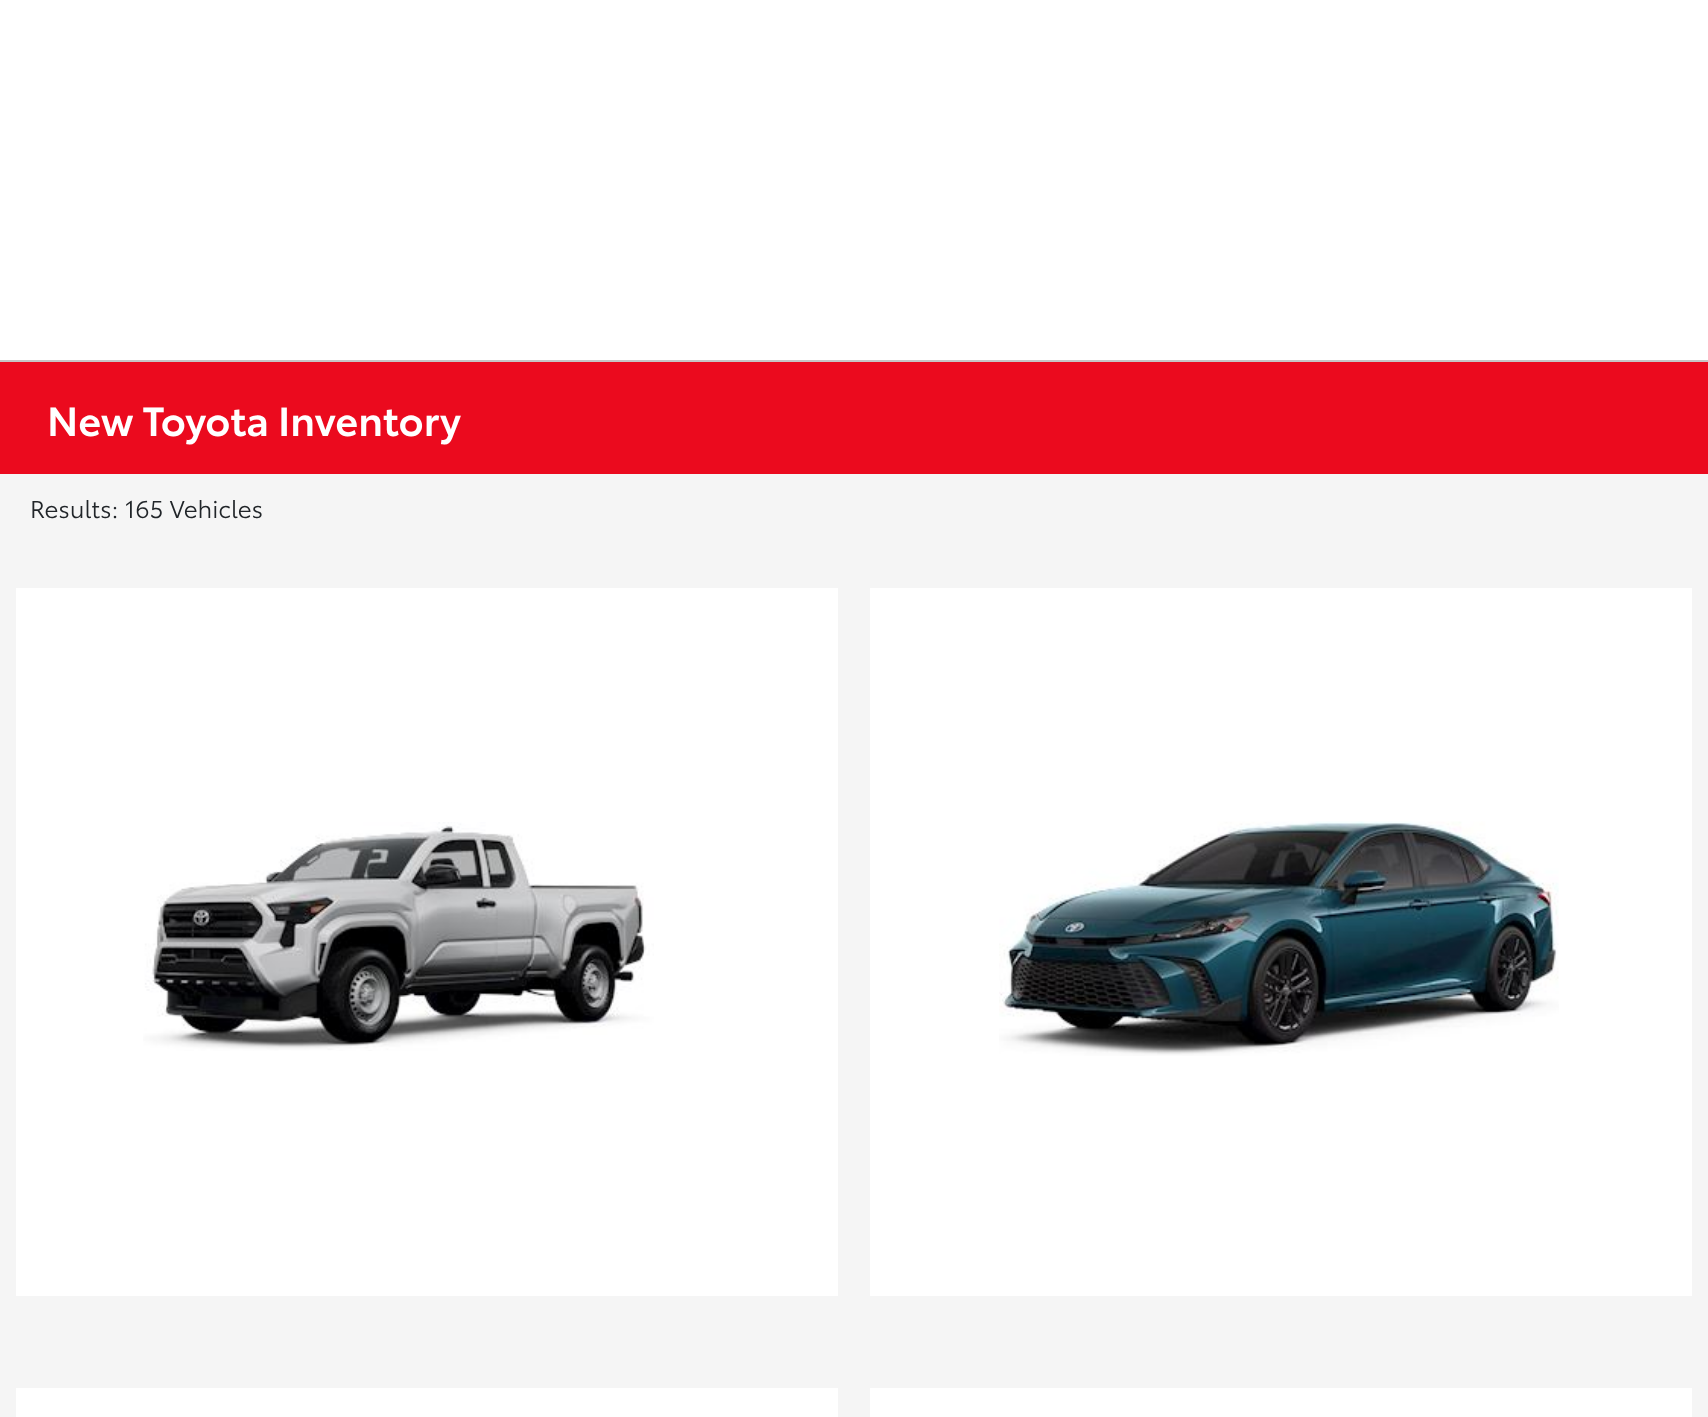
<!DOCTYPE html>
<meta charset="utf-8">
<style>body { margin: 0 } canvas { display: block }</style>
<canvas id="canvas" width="1708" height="1417"></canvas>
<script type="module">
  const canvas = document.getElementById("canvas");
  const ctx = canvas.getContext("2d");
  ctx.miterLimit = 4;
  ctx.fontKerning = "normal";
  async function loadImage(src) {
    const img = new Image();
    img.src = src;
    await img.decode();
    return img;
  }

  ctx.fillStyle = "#ffffff";
  ctx.fillRect(0, 0, 1708, 1417);
  ctx.fillStyle = "#f5f5f5";
  ctx.fillRect(0, 474, 1708, 943);
  ctx.fillStyle = "#eb0a1e";
  ctx.fillRect(0, 362, 1708, 112);
  ctx.fillStyle = "#c6c6c6";
  ctx.fillRect(0, 360, 1708, 2);
  ctx.font = "600 40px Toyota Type";
  ctx.fillStyle = "#ffffff";
  ctx.fillText("New Toyota Inventory", 47, 436);
  ctx.font = "24px Toyota Type";
  ctx.fillStyle = "#212529";
  ctx.fillText("Results: 165 Vehicles", 30, 518);
  ctx.fillStyle = "#ffffff";
  ctx.fillRect(16, 588, 822, 708);
  ctx.drawImage(await loadImage("img1.png"), 143, 822, 511, 229);
  ctx.fillRect(870, 588, 822, 708);
  ctx.drawImage(await loadImage("img2.png"), 999, 821, 560, 235);
  ctx.fillRect(16, 1388, 822, 29);
  ctx.fillRect(870, 1388, 822, 29);
</script>
